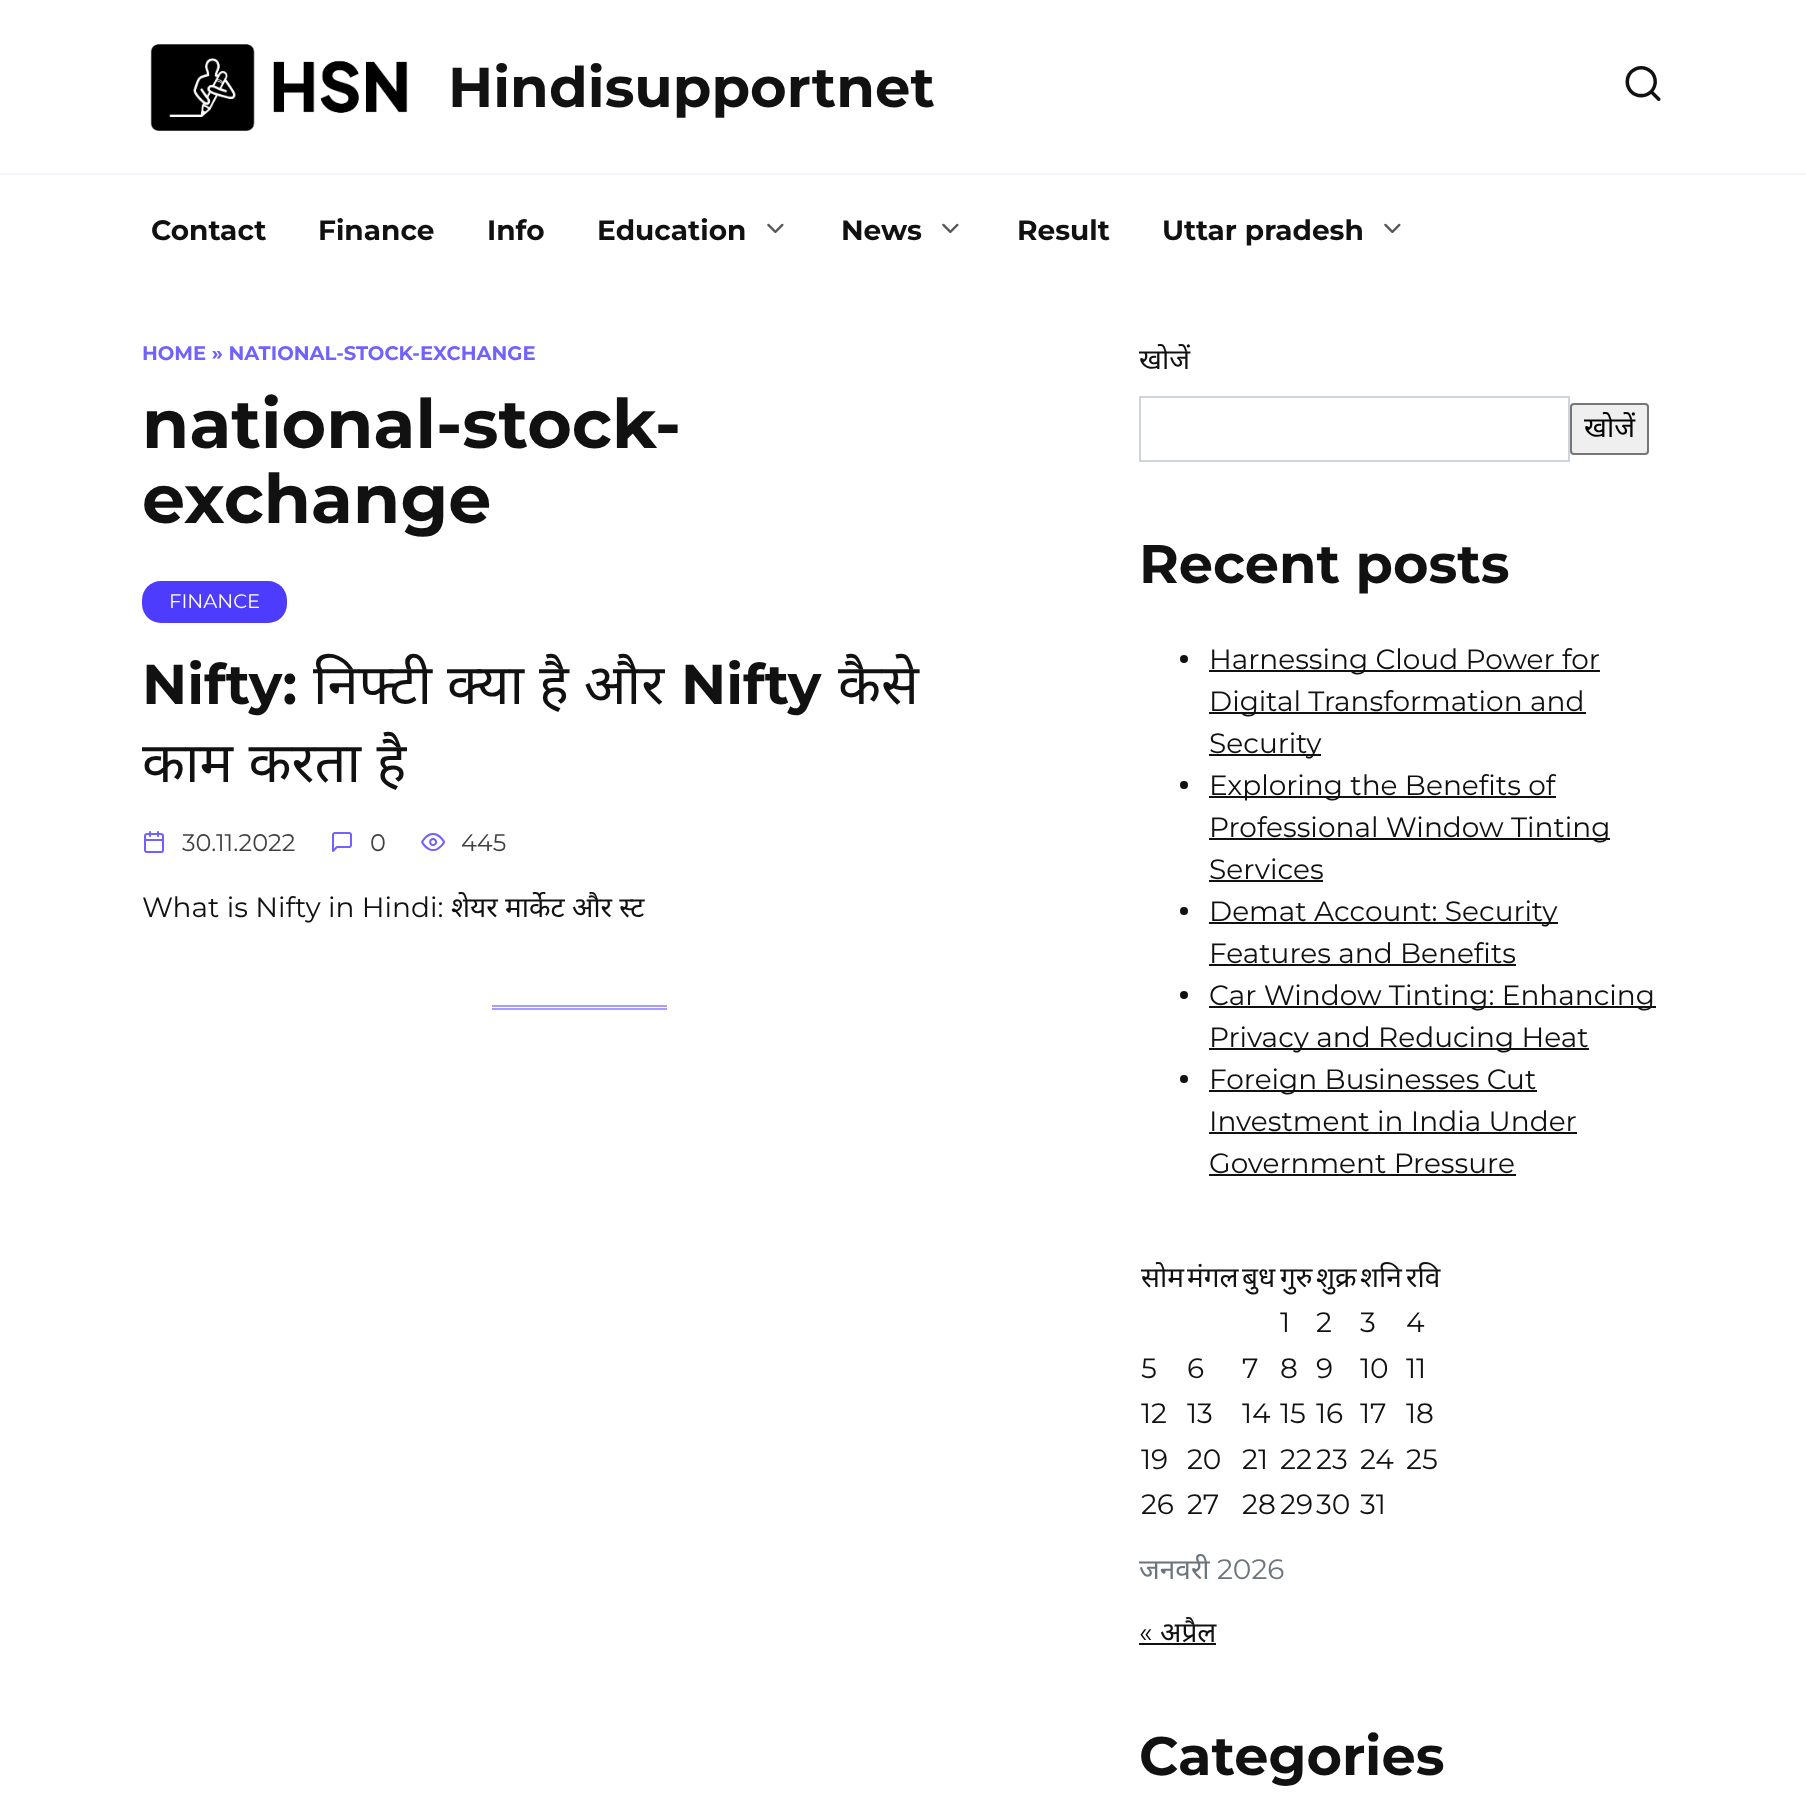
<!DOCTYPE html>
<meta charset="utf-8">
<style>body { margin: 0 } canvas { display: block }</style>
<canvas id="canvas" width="1806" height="1810"></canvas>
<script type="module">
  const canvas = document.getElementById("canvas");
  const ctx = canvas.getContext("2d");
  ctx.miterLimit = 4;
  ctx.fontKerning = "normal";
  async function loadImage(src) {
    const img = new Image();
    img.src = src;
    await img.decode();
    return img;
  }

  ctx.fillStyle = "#ffffff";
  ctx.fillRect(0, 0, 1806, 1810);
  ctx.fillStyle = "#f2f5f9";
  ctx.fillRect(0, 173, 1806, 2);
  ctx.drawImage(await loadImage("img1.png"), 150, 44, 258, 87);
  ctx.font = "bold 56px Montserrat";
  ctx.fillStyle = "#111111";
  ctx.fillText("Hindisupportnet", 448, 107);
  ctx.font = "42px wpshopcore";
  ctx.fillText("🔍", 1622, 101);
  ctx.font = "bold 28px Montserrat";
  ctx.fillText("Contact", 151, 240);
  ctx.fillText("Finance", 318, 240);
  ctx.fillText("Info", 487, 240);
  ctx.fillText("Education", 597, 240);
  ctx.font = "28px wpshopcore";
  ctx.fillStyle = "#585858";
  ctx.fillText("﹀", 761, 240);
  ctx.font = "bold 28px Montserrat";
  ctx.fillStyle = "#111111";
  ctx.fillText("News", 841, 240);
  ctx.font = "28px wpshopcore";
  ctx.fillStyle = "#585858";
  ctx.fillText("﹀", 936, 240);
  ctx.font = "bold 28px Montserrat";
  ctx.fillStyle = "#111111";
  ctx.fillText("Result", 1017, 240);
  ctx.fillText("Uttar pradesh", 1162, 240);
  ctx.font = "28px wpshopcore";
  ctx.fillStyle = "#585858";
  ctx.fillText("﹀", 1378, 240);
  ctx.font = "bold 19.6px Montserrat";
  ctx.fillStyle = "#7162fe";
  ctx.fillText("HOME » NATIONAL-STOCK-EXCHANGE", 142, 360);
  ctx.font = "bold 68.25px Montserrat";
  ctx.fillStyle = "#111111";
  ctx.fillText("national-stock-", 142, 448);
  ctx.fillText("exchange", 142, 523);
  ctx.fillStyle = "#4d3bfe";
  ctx.beginPath();
  ctx.roundRect(142, 581, 145, 42, 19);
  ctx.fill();
  ctx.font = "19.6px Montserrat";
  ctx.fillStyle = "#ffffff";
  ctx.fillText("FINANCE", 169, 608);
  ctx.font = "bold 56px Montserrat";
  ctx.fillStyle = "#111111";
  ctx.fillText("Nifty:", 142, 704);
  ctx.wordSpacing = "0.5px";
  ctx.font = "56px Noto Sans";
  ctx.fillText("निफ्टी क्या है और", 313, 704);
  ctx.wordSpacing = "0px";
  ctx.font = "bold 56px Montserrat";
  ctx.fillText("Nifty", 681, 704);
  ctx.font = "56px Noto Sans";
  ctx.fillText("कैसे", 838, 704);
  ctx.wordSpacing = "1px";
  ctx.fillText("काम करता है", 142, 782);
  ctx.wordSpacing = "0px";
  ctx.font = "24px wpshopcore";
  ctx.fillStyle = "#7162fe";
  ctx.fillText("📅", 142, 852);
  ctx.font = "24px Montserrat";
  ctx.fillStyle = "#414141";
  ctx.fillText("30.11.2022", 182, 851);
  ctx.font = "24px wpshopcore";
  ctx.fillStyle = "#7162fe";
  ctx.fillText("💬", 330, 852);
  ctx.font = "24px Montserrat";
  ctx.fillStyle = "#414141";
  ctx.fillText("0", 370, 851);
  ctx.font = "24px wpshopcore";
  ctx.fillStyle = "#7162fe";
  ctx.fillText("👀", 421, 852);
  ctx.font = "24px Montserrat";
  ctx.fillStyle = "#414141";
  ctx.fillText("445", 461, 851);
  ctx.font = "28px Montserrat";
  ctx.fillStyle = "#111111";
  ctx.fillText("What is Nifty in Hindi:", 142, 917);
  ctx.font = "28px Noto Sans";
  ctx.fillText("शेयर मार्केट और स्ट", 451, 917);
  ctx.fillStyle = "#a69dff";
  ctx.fillRect(492, 1005, 175, 2);
  ctx.fillRect(492, 1008, 175, 2);
  ctx.fillStyle = "#111111";
  ctx.fillText("खोजें", 1139, 369);
  ctx.strokeStyle = "#ced4da";
  ctx.lineWidth = 2;
  ctx.strokeRect(1140, 397, 429, 64);
  ctx.fillStyle = "#efefef";
  ctx.beginPath();
  ctx.roundRect(1571, 404, 77, 50, 3);
  ctx.fill();
  ctx.strokeStyle = "#767676";
  ctx.stroke();
  ctx.fillStyle = "#000000";
  ctx.fillText("खोजें", 1584, 437);
  ctx.font = "bold 54.25px Montserrat";
  ctx.fillStyle = "#111111";
  ctx.fillText("Recent posts", 1139, 583);
  ctx.beginPath();
  ctx.arc(1184, 659, 4, 0, Math.PI * 2);
  ctx.fill();
  ctx.fillRect(1209, 670, 391, 2);
  ctx.font = "28px Montserrat";
  ctx.fillText("Harnessing Cloud Power for", 1209, 669);
  ctx.fillRect(1209, 712, 377, 2);
  ctx.fillText("Digital Transformation and", 1209, 711);
  ctx.fillRect(1209, 754, 112, 2);
  ctx.fillText("Security", 1209, 753);
  ctx.beginPath();
  ctx.arc(1184, 785, 4, 0, Math.PI * 2);
  ctx.fill();
  ctx.fillRect(1209, 796, 347, 2);
  ctx.fillText("Exploring the Benefits of", 1209, 795);
  ctx.fillRect(1209, 838, 401, 2);
  ctx.fillText("Professional Window Tinting", 1209, 837);
  ctx.fillText("Services", 1209, 879);
  ctx.fillRect(1209, 880, 114, 2);
  ctx.beginPath();
  ctx.arc(1184, 911, 4, 0, Math.PI * 2);
  ctx.fill();
  ctx.fillRect(1209, 922, 349, 2);
  ctx.fillText("Demat Account: Security", 1209, 921);
  ctx.fillText("Features and Benefits", 1209, 963);
  ctx.fillRect(1209, 964, 307, 2);
  ctx.beginPath();
  ctx.arc(1184, 995, 4, 0, Math.PI * 2);
  ctx.fill();
  ctx.fillRect(1209, 1006, 447, 2);
  ctx.fillText("Car Window Tinting: Enhancing", 1209, 1005);
  ctx.fillRect(1209, 1048, 380, 2);
  ctx.fillText("Privacy and Reducing Heat", 1209, 1047);
  ctx.beginPath();
  ctx.arc(1184, 1079, 4, 0, Math.PI * 2);
  ctx.fill();
  ctx.fillRect(1209, 1090, 328, 2);
  ctx.fillText("Foreign Businesses Cut", 1209, 1089);
  ctx.fillText("Investment in India Under", 1209, 1131);
  ctx.fillRect(1209, 1132, 368, 2);
  ctx.fillText("Government Pressure", 1209, 1173);
  ctx.fillRect(1209, 1174, 307, 2);
  ctx.font = "28px Noto Sans";
  ctx.fillText("सोम", 1141, 1287);
  ctx.fillText("मंगल", 1187, 1287);
  ctx.fillText("बुध", 1242, 1287);
  ctx.fillText("गुरु", 1280, 1287);
  ctx.fillText("शुक्र", 1316, 1287);
  ctx.fillText("शनि", 1360, 1287);
  ctx.fillText("रवि", 1406, 1287);
  ctx.font = "28px Montserrat";
  ctx.fillText("1", 1280, 1332);
  ctx.fillText("2", 1316, 1332);
  ctx.fillText("3", 1360, 1332);
  ctx.fillText("4", 1406, 1332);
  ctx.fillText("5", 1141, 1378);
  ctx.fillText("6", 1187, 1378);
  ctx.fillText("7", 1242, 1378);
  ctx.fillText("8", 1280, 1378);
  ctx.fillText("9", 1316, 1378);
  ctx.fillText("10", 1360, 1378);
  ctx.fillText("11", 1406, 1378);
  ctx.fillText("12", 1141, 1423);
  ctx.fillText("13", 1187, 1423);
  ctx.fillText("14", 1242, 1423);
  ctx.fillText("15", 1280, 1423);
  ctx.fillText("16", 1316, 1423);
  ctx.fillText("17", 1360, 1423);
  ctx.fillText("18", 1406, 1423);
  ctx.fillText("19", 1141, 1469);
  ctx.fillText("20", 1187, 1469);
  ctx.fillText("21", 1242, 1469);
  ctx.fillText("22", 1280, 1469);
  ctx.fillText("23", 1316, 1469);
  ctx.fillText("24", 1360, 1469);
  ctx.fillText("25", 1406, 1469);
  ctx.fillText("26", 1141, 1514);
  ctx.fillText("27", 1187, 1514);
  ctx.fillText("28", 1242, 1514);
  ctx.fillText("29", 1280, 1514);
  ctx.fillText("30", 1316, 1514);
  ctx.fillText("31", 1360, 1514);
  ctx.font = "28px Noto Sans";
  ctx.fillStyle = "#6c757d";
  ctx.fillText("जनवरी", 1139, 1579);
  ctx.font = "28px Montserrat";
  ctx.fillText("2026", 1217, 1579);
  ctx.fillStyle = "#111111";
  ctx.fillText("«", 1139, 1642);
  ctx.fillRect(1139, 1643, 77, 2);
  ctx.font = "28px Noto Sans";
  ctx.fillText("अप्रैल", 1160, 1642);
  ctx.font = "bold 54.25px Montserrat";
  ctx.fillText("Categories", 1139, 1775);
</script>
